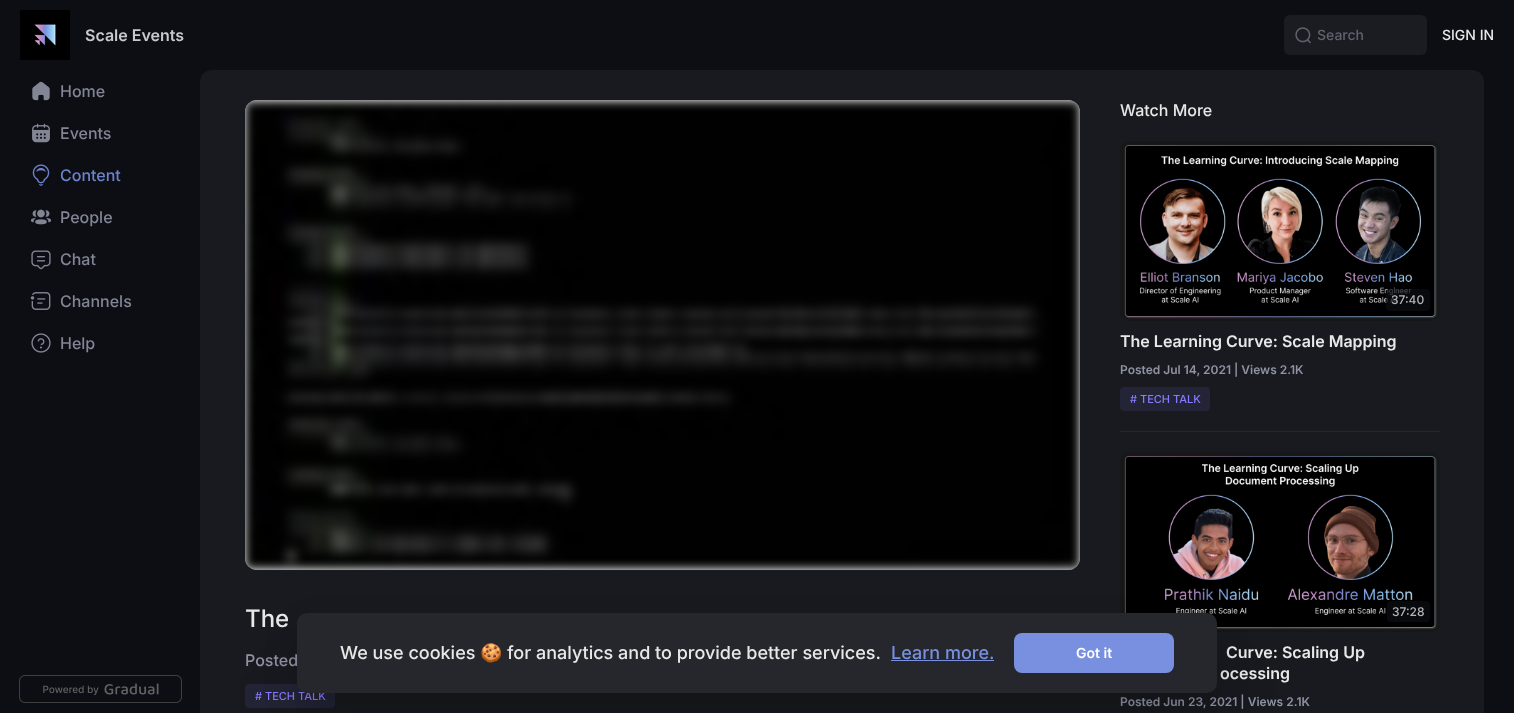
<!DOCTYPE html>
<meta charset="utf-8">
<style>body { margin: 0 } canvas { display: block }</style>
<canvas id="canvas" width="1514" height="713"></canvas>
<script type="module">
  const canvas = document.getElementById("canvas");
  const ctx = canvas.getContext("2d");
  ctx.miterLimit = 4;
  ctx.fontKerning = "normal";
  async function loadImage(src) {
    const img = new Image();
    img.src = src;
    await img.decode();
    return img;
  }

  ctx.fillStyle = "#0c0e13";
  ctx.fillRect(0, 0, 1514, 713);
  ctx.drawImage(await loadImage("img1.png"), 20, 10, 50, 50);
  ctx.font = "600 16px Inter";
  ctx.fillStyle = "#c9c7d0";
  ctx.fillText("Scale Events", 85, 41);
  ctx.fillStyle = "#1b1c21";
  ctx.beginPath();
  ctx.roundRect(1284, 15, 143, 40, 6);
  ctx.fill();
  ctx.drawImage(await loadImage("img2.png"), 1295, 27, 16, 17);
  ctx.font = "500 14px Inter";
  ctx.fillStyle = "#60626e";
  ctx.fillText("Search", 1317, 40);
  ctx.fillStyle = "#e8e8e9";
  ctx.fillText("SIGN IN", 1442, 40);
  ctx.drawImage(await loadImage("img3.png"), 32, 81, 18, 20);
  ctx.font = "500 16px Inter";
  ctx.fillStyle = "#828595";
  ctx.fillText("Home", 60, 97);
  ctx.drawImage(await loadImage("img4.png"), 32, 123, 18, 20);
  ctx.fillText("Events", 60, 139);
  ctx.drawImage(await loadImage("img5.png"), 32, 164, 18, 22);
  ctx.fillStyle = "#6d83cb";
  ctx.fillText("Content", 60, 181);
  ctx.drawImage(await loadImage("img6.png"), 31, 209, 20, 16);
  ctx.fillStyle = "#828595";
  ctx.fillText("People", 60, 223);
  ctx.drawImage(await loadImage("img7.png"), 31, 250, 20, 20);
  ctx.fillText("Chat", 60, 265);
  ctx.drawImage(await loadImage("img8.png"), 30, 292, 21, 18);
  ctx.fillText("Channels", 60, 307);
  ctx.drawImage(await loadImage("img9.png"), 31, 333, 20, 20);
  ctx.fillText("Help", 60, 349);
  ctx.drawImage(await loadImage("img10.png"), 19, 675, 163, 28);
  ctx.fillStyle = "#181a1f";
  ctx.beginPath();
  ctx.roundRect(200, 70, 1284, 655, 12);
  ctx.fill();
  ctx.drawImage(await loadImage("img11.png"), 245, 100, 835, 470);
  ctx.font = "500 24px Inter";
  ctx.fillStyle = "#e8e8e9";
  ctx.fillText("The", 245, 627);
  ctx.font = "500 16px Inter";
  ctx.fillStyle = "#8f92a3";
  ctx.fillText("Posted", 245, 666);
  ctx.fillStyle = "#232435";
  ctx.beginPath();
  ctx.roundRect(245, 684, 90, 24, 4);
  ctx.fill();
  ctx.font = "500 11px Inter";
  ctx.fillStyle = "#897bff";
  ctx.fillText("# TECH TALK", 255, 700);
  ctx.font = "500 16px Inter";
  ctx.fillStyle = "#e8e8e9";
  ctx.fillText("Watch More", 1120, 116);
  ctx.drawImage(await loadImage("img12.png"), 1120, 141, 320, 180);
  ctx.fillStyle = "rgba(12, 14, 19, 0.7)";
  ctx.beginPath();
  ctx.roundRect(1386, 289, 44, 22, 4);
  ctx.fill();
  ctx.font = "500 12px Inter";
  ctx.fillStyle = "#b6b6b7";
  ctx.fillText("37:40", 1391, 304);
  ctx.font = "600 16px Inter";
  ctx.fillStyle = "#e8e8e9";
  ctx.fillText("The Learning Curve: Scale Mapping", 1120, 347);
  ctx.font = "600 12px Inter";
  ctx.fillStyle = "#8f92a3";
  ctx.fillText("Posted Jul 14, 2021 | Views 2.1K", 1120, 374);
  ctx.fillStyle = "#232435";
  ctx.beginPath();
  ctx.roundRect(1120, 387, 90, 24, 4);
  ctx.fill();
  ctx.font = "500 11px Inter";
  ctx.fillStyle = "#897bff";
  ctx.fillText("# TECH TALK", 1130, 403);
  ctx.fillStyle = "#25272c";
  ctx.fillRect(1120, 431, 320, 1);
  ctx.drawImage(await loadImage("img13.png"), 1120, 452, 320, 180);
  ctx.fillStyle = "#080a0d";
  ctx.beginPath();
  ctx.roundRect(1387, 601, 43, 21, 4);
  ctx.fill();
  ctx.font = "500 12px Inter";
  ctx.fillStyle = "#b6b6b7";
  ctx.fillText("37:28", 1392, 616);
  ctx.font = "600 16px Inter";
  ctx.fillStyle = "#e8e8e9";
  ctx.fillText("Curve: Scaling Up", 1226, 658);
  ctx.fillText("ocessing", 1220, 679);
  ctx.font = "600 12px Inter";
  ctx.fillStyle = "#8f92a3";
  ctx.fillText("Posted Jun 23, 2021 | Views 2.1K", 1120, 706);
  ctx.fillStyle = "rgba(0, 0, 0, 0.12)";
  ctx.filter = "blur(16.5px)";
  ctx.beginPath();
  ctx.roundRect(297, 628, 920, 80, 10);
  ctx.fill();
  ctx.filter = "none";
  ctx.fillStyle = "rgba(0, 0, 0, 0.1)";
  ctx.filter = "blur(30px)";
  ctx.beginPath();
  ctx.roundRect(297, 673, 920, 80, 10);
  ctx.fill();
  ctx.filter = "none";
  ctx.fillStyle = "#25272c";
  ctx.beginPath();
  ctx.roundRect(297, 613, 920, 80, 10);
  ctx.fill();
  ctx.font = "500 18px Inter";
  ctx.fillStyle = "#e8e8e9";
  ctx.fillText("We use cookies", 340, 659);
  ctx.font = "18px Noto Color Emoji";
  ctx.fillText("🍪", 480, 659);
  ctx.font = "500 18px Inter";
  ctx.fillText("for analytics and to provide better services.", 507, 659);
  ctx.fillStyle = "#7890df";
  ctx.fillText("Learn more.", 891, 659);
  ctx.fillRect(891, 660, 103, 1);
  ctx.beginPath();
  ctx.roundRect(1014, 633, 160, 40, 8);
  ctx.fill();
  ctx.font = "600 14px Inter";
  ctx.fillStyle = "#ffffff";
  ctx.fillText("Got it", 1076, 658);
</script>
